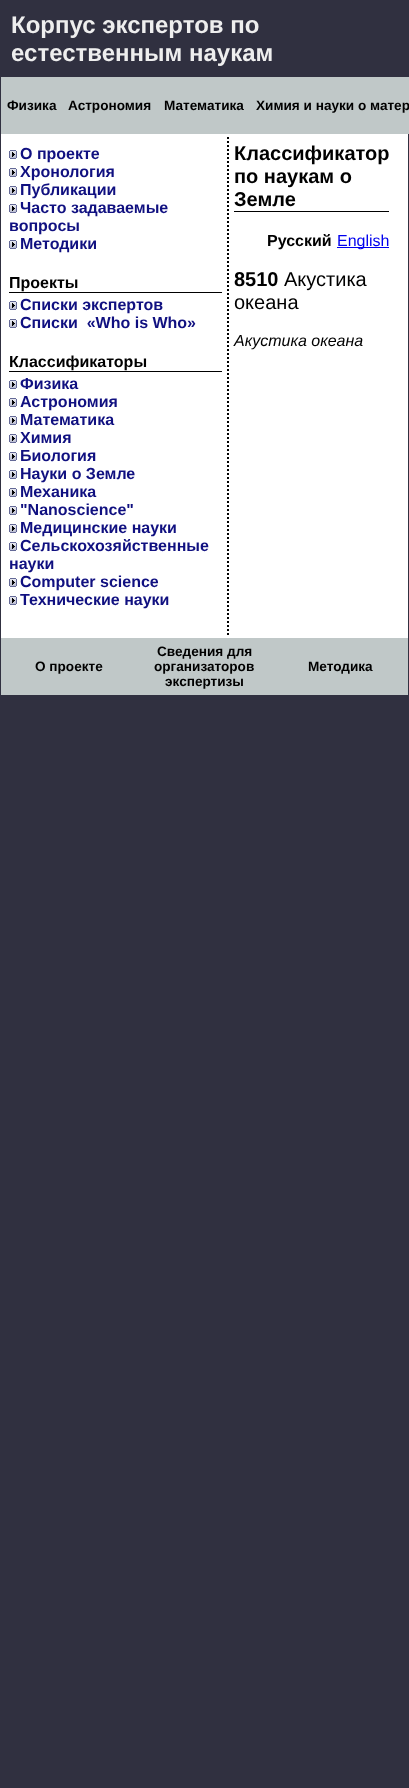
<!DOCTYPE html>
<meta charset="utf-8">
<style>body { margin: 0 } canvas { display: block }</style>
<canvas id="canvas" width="409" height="1788"></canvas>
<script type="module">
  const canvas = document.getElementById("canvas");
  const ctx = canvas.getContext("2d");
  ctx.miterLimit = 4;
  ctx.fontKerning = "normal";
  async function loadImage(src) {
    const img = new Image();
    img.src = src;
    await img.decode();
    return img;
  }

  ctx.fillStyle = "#303040";
  ctx.fillRect(0, 0, 409, 1788);
  ctx.font = "bold 24px Liberation Sans";
  ctx.fillStyle = "#eeeeee";
  ctx.fillText("Корпус экспертов по", 11, 33);
  ctx.fillText("естественным наукам", 11, 61);
  ctx.fillStyle = "#c0c8c8";
  ctx.fillRect(1, 77, 408, 57);
  ctx.font = "bold 13.6px Liberation Sans";
  ctx.fillStyle = "#000000";
  ctx.fillText("Физика", 7, 110);
  ctx.fillText("Астрономия", 68, 110);
  ctx.fillText("Математика", 164, 110);
  ctx.fillText("Химия и науки о матер", 256, 110);
  ctx.fillStyle = "#ffffff";
  ctx.fillRect(1, 134, 407, 504);
  ctx.beginPath();
  ctx.moveTo(228, 137);
  ctx.lineTo(228, 635);
  ctx.strokeStyle = "#000000";
  ctx.lineWidth = 2;
  ctx.setLineDash([2, 2]);
  ctx.stroke();
  ctx.drawImage(await loadImage("img1.png"), 9, 150, 8, 9);
  ctx.font = "bold 16px Liberation Sans";
  ctx.fillStyle = "#101080";
  ctx.fillText("О проекте", 20, 159);
  ctx.drawImage(await loadImage("img1.png"), 9, 168, 8, 9);
  ctx.fillText("Хронология", 20, 177);
  ctx.drawImage(await loadImage("img1.png"), 9, 186, 8, 9);
  ctx.fillText("Публикации", 20, 195);
  ctx.drawImage(await loadImage("img1.png"), 9, 204, 8, 9);
  ctx.fillText("Часто задаваемые", 20, 213);
  ctx.fillText("вопросы", 9, 231);
  ctx.drawImage(await loadImage("img1.png"), 9, 240, 8, 9);
  ctx.fillText("Методики", 20, 249);
  ctx.fillStyle = "#000000";
  ctx.fillRect(9, 292, 213, 1);
  ctx.fillText("Проекты", 9, 288);
  ctx.drawImage(await loadImage("img1.png"), 9, 301, 8, 9);
  ctx.fillStyle = "#101080";
  ctx.fillText("Cписки экспертов", 20, 310);
  ctx.drawImage(await loadImage("img1.png"), 9, 319, 8, 9);
  ctx.fillText("Списки  «Who is Who»", 20, 328);
  ctx.fillStyle = "#000000";
  ctx.fillRect(9, 371, 213, 1);
  ctx.fillText("Классификаторы", 9, 367);
  ctx.drawImage(await loadImage("img1.png"), 9, 380, 8, 9);
  ctx.fillStyle = "#101080";
  ctx.fillText("Физика", 20, 389);
  ctx.drawImage(await loadImage("img1.png"), 9, 398, 8, 9);
  ctx.fillText("Астрономия", 20, 407);
  ctx.drawImage(await loadImage("img1.png"), 9, 416, 8, 9);
  ctx.fillText("Математика", 20, 425);
  ctx.drawImage(await loadImage("img1.png"), 9, 434, 8, 9);
  ctx.fillText("Химия", 20, 443);
  ctx.drawImage(await loadImage("img1.png"), 9, 452, 8, 9);
  ctx.fillText("Биология", 20, 461);
  ctx.drawImage(await loadImage("img1.png"), 9, 470, 8, 9);
  ctx.fillText("Науки о Земле", 20, 479);
  ctx.drawImage(await loadImage("img1.png"), 9, 488, 8, 9);
  ctx.fillText("Механика", 20, 497);
  ctx.drawImage(await loadImage("img1.png"), 9, 506, 8, 9);
  ctx.fillText("\"Nanoscience\"", 20, 515);
  ctx.drawImage(await loadImage("img1.png"), 9, 524, 8, 9);
  ctx.fillText("Медицинские науки", 20, 533);
  ctx.drawImage(await loadImage("img1.png"), 9, 542, 8, 9);
  ctx.fillText("Сельскохозяйственные", 20, 551);
  ctx.fillText("науки", 9, 569);
  ctx.drawImage(await loadImage("img1.png"), 9, 578, 8, 9);
  ctx.fillText("Computer science", 20, 587);
  ctx.drawImage(await loadImage("img1.png"), 9, 596, 8, 9);
  ctx.fillText("Технические науки", 20, 605);
  ctx.fillStyle = "#000000";
  ctx.fillRect(234, 211, 155, 1);
  ctx.font = "bold 20px Liberation Sans";
  ctx.fillText("Классификатор", 234, 160);
  ctx.fillText("по наукам о", 234, 183);
  ctx.fillText("Земле", 234, 206);
  ctx.font = "bold 16px Liberation Sans";
  ctx.fillText("Русский", 267, 246);
  ctx.fillStyle = "#0000ee";
  ctx.fillRect(337, 247, 52, 1);
  ctx.font = "16px Liberation Sans";
  ctx.fillText("English", 337, 246);
  ctx.font = "bold 20px Liberation Sans";
  ctx.fillStyle = "#000000";
  ctx.fillText("8510", 234, 286);
  ctx.font = "20px Liberation Sans";
  ctx.fillText("Акустика", 284, 286);
  ctx.fillText("океана", 234, 309);
  ctx.font = "italic 16px Liberation Sans";
  ctx.fillText("Акустика океана", 234, 346);
  ctx.fillStyle = "#c0c8c8";
  ctx.fillRect(1, 638, 407, 57);
  ctx.font = "bold 13.6px Liberation Sans";
  ctx.fillStyle = "#000000";
  ctx.fillText("О проекте", 35, 671);
  ctx.fillText("Сведения для", 157, 656);
  ctx.fillText("организаторов", 154, 671);
  ctx.fillText("экспертизы", 165, 686);
  ctx.fillText("Методика", 308, 671);
</script>
